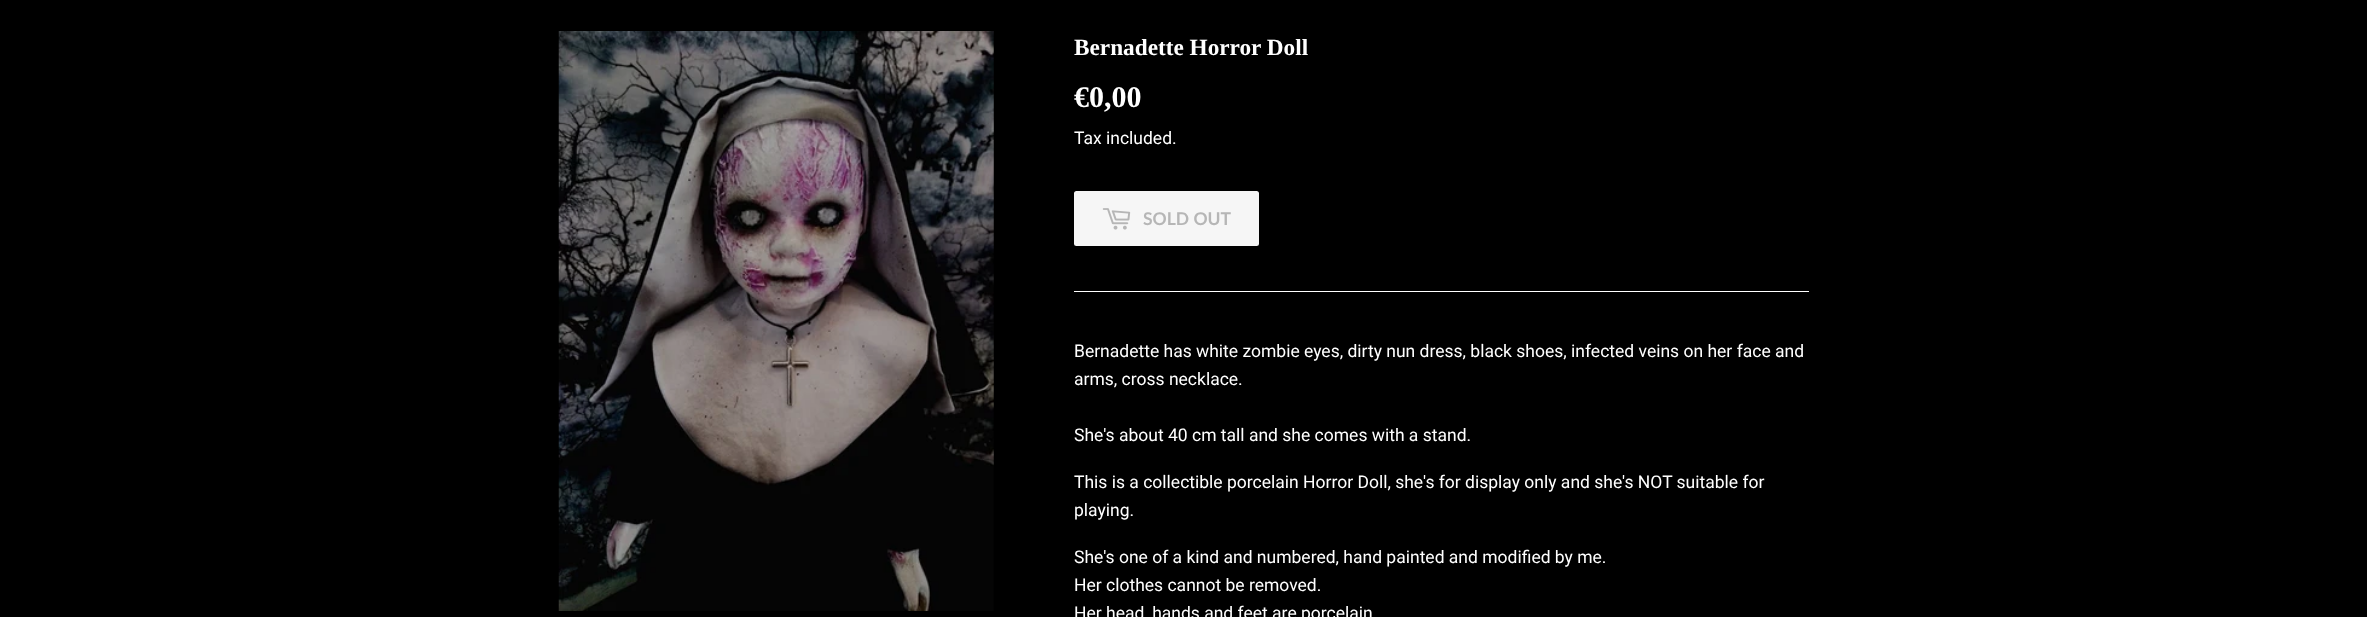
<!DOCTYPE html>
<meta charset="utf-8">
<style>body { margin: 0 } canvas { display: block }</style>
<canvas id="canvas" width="2367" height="617"></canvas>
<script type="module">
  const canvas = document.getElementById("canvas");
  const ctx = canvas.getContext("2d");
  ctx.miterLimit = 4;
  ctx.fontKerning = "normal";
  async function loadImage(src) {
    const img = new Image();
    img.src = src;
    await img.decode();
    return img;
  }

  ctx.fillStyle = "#000000";
  ctx.fillRect(0, 0, 2367, 617);
  ctx.drawImage(await loadImage("img1.png"), 558, 31, 436, 580);
  ctx.font = "bold 23.25px Liberation Serif";
  ctx.fillStyle = "#ffffff";
  ctx.fillText("Bernadette Horror Doll", 1074, 55);
  ctx.font = "bold 30px Liberation Serif";
  ctx.fillText("€0,00", 1074, 107);
  ctx.font = "17.5px Roboto";
  ctx.fillText("Tax included.", 1074, 144);
  ctx.fillStyle = "#f6f6f6";
  ctx.beginPath();
  ctx.roundRect(1075.5, 192.5, 182, 52, 1);
  ctx.fill();
  ctx.strokeStyle = "#f6f6f6";
  ctx.lineWidth = 3;
  ctx.stroke();
  ctx.drawImage(await loadImage("img2.png"), 1102, 208, 29, 22);
  ctx.font = "bold 17.5px Lato";
  ctx.fillStyle = "#b6b6b6";
  ctx.fillText("SOLD OUT", 1143, 225);
  ctx.fillStyle = "#ffffff";
  ctx.fillRect(1074, 291, 735, 1);
  ctx.font = "17.5px Roboto";
  ctx.fillText("Bernadette has white zombie eyes, dirty nun dress, black shoes, infected veins on her face and", 1074, 357);
  ctx.fillText("arms, cross necklace.", 1074, 385);
  ctx.fillText("She's about 40 cm tall and she comes with a stand.", 1074, 441);
  ctx.fillText("This is a collectible porcelain Horror Doll, she's for display only and she's NOT suitable for", 1074, 488);
  ctx.fillText("playing.", 1074, 516);
  ctx.fillText("She's one of a kind and numbered, hand painted and modified by me.", 1074, 563);
  ctx.fillText("Her clothes cannot be removed.", 1074, 591);
  ctx.fillText("Her head, hands and feet are porcelain", 1074, 619);
</script>
